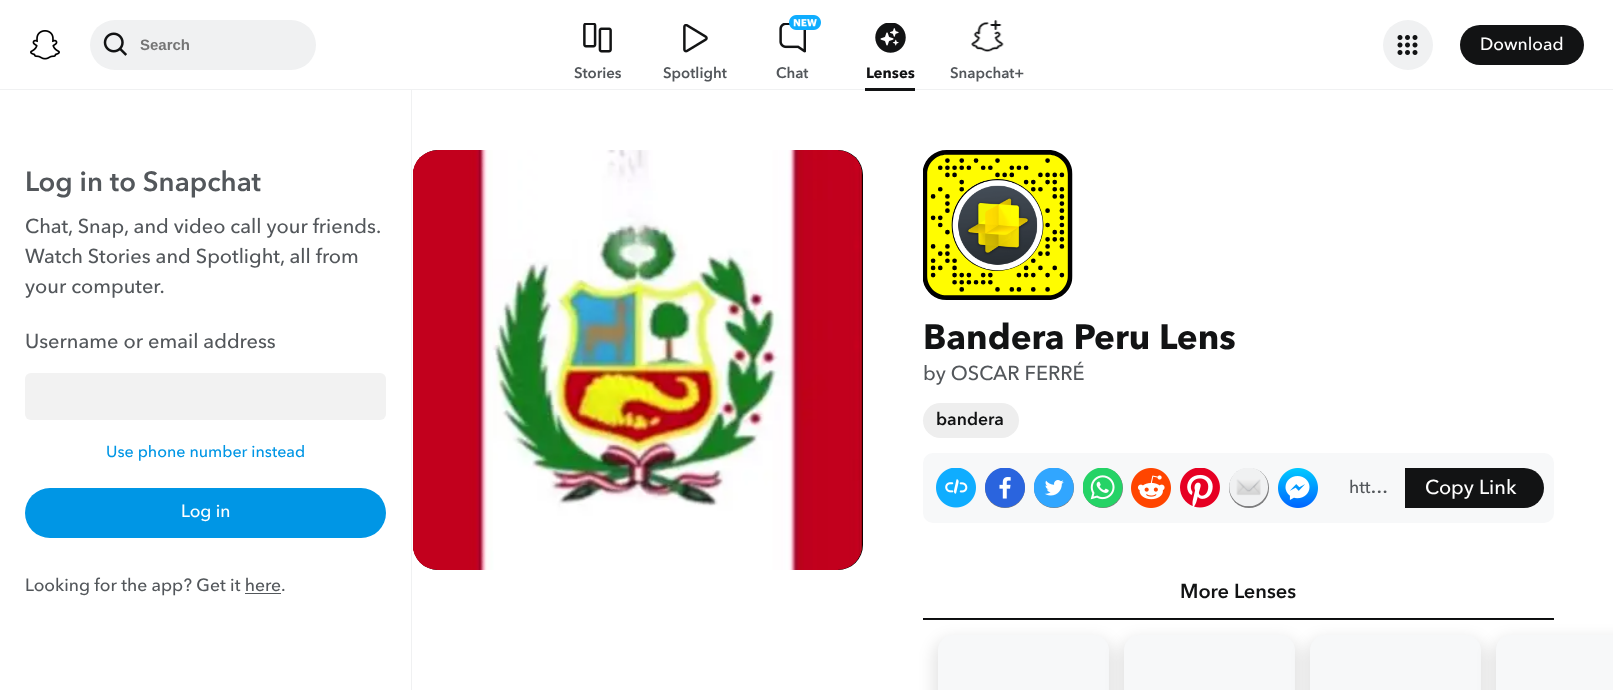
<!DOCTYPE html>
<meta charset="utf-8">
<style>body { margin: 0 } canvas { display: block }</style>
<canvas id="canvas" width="1613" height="690"></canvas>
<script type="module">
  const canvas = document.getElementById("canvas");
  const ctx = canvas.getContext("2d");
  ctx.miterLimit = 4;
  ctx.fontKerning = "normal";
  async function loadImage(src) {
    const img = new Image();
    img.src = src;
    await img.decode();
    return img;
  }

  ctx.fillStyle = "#ffffff";
  ctx.fillRect(0, 0, 1613, 690);
  ctx.fillStyle = "#f0f1f2";
  ctx.fillRect(0, 89, 1613, 1);
  ctx.drawImage(await loadImage("img1.png"), 30, 30, 30, 30);
  ctx.beginPath();
  ctx.roundRect(90, 20, 226, 50, 25);
  ctx.fill();
  ctx.drawImage(await loadImage("img2.png"), 103, 32, 24, 24);
  ctx.font = "bold 15px Liberation Sans";
  ctx.fillStyle = "#757575";
  ctx.fillText("Search", 140, 50);
  ctx.fillStyle = "#f0f1f2";
  ctx.beginPath();
  ctx.arc(1408, 45, 25, 0, Math.PI * 2);
  ctx.fill();
  ctx.drawImage(await loadImage("img3.png"), 1397, 35, 21, 20);
  ctx.fillStyle = "#121314";
  ctx.beginPath();
  ctx.roundRect(1460, 25, 124, 40, 20);
  ctx.fill();
  ctx.font = "500 17.5px Avenir Next";
  ctx.fillStyle = "#ffffff";
  ctx.fillText("Download", 1480, 50);
  ctx.drawImage(await loadImage("img4.png"), 583, 23, 29, 30);
  ctx.font = "600 15px Avenir Next";
  ctx.fillStyle = "#53575b";
  ctx.fillText("Stories", 574, 78);
  ctx.drawImage(await loadImage("img5.png"), 683, 24, 25, 29);
  ctx.fillText("Spotlight", 663, 78);
  ctx.drawImage(await loadImage("img7.png"), 779, 23, 27, 30);
  ctx.drawImage(await loadImage("img6.png"), 789, 15, 32, 15);
  ctx.fillText("Chat", 776, 78);
  ctx.drawImage(await loadImage("img8.png"), 875, 23, 31, 30);
  ctx.fillStyle = "#121314";
  ctx.fillRect(865, 88, 50, 3);
  ctx.font = "bold 15px Avenir Next";
  ctx.fillText("Lenses", 866, 78);
  ctx.drawImage(await loadImage("img9.png"), 971, 20, 33, 32);
  ctx.font = "600 15px Avenir Next";
  ctx.fillStyle = "#53575b";
  ctx.fillText("Snapchat+", 950, 78);
  ctx.fillStyle = "#000000";
  ctx.beginPath();
  ctx.roundRect(413, 150, 450, 420, 25);
  ctx.fill();
  ctx.drawImage(await loadImage("img10.png"), 413, 150, 450, 420);
  ctx.drawImage(await loadImage("img11.png"), 923, 150, 150, 150);
  ctx.font = "bold 35px Avenir Next";
  ctx.fillStyle = "#121314";
  ctx.fillText("Bandera Peru Lens", 923, 349);
  ctx.font = "500 20px Avenir Next";
  ctx.fillStyle = "#53575b";
  ctx.fillText("by OSCAR FERRÉ", 923, 380);
  ctx.fillStyle = "#eeeeee";
  ctx.beginPath();
  ctx.roundRect(923, 403, 96, 35, 17.5);
  ctx.fill();
  ctx.font = "600 17.5px Avenir Next";
  ctx.fillStyle = "#121314";
  ctx.fillText("bandera", 936, 425);
  ctx.fillStyle = "#f7f8f9";
  ctx.beginPath();
  ctx.roundRect(923, 453, 631, 70, 10);
  ctx.fill();
  ctx.drawImage(await loadImage("img12.png"), 936, 468, 40, 40);
  ctx.fillStyle = "#7c7c7d";
  ctx.beginPath();
  ctx.arc(1005, 488, 20, 0, Math.PI * 2);
  ctx.fill();
  ctx.drawImage(await loadImage("img13.png"), 985, 468, 40, 40);
  ctx.beginPath();
  ctx.arc(1054, 488, 20, 0, Math.PI * 2);
  ctx.fill();
  ctx.drawImage(await loadImage("img14.png"), 1034, 468, 40, 40);
  ctx.beginPath();
  ctx.arc(1103, 488, 20, 0, Math.PI * 2);
  ctx.fill();
  ctx.drawImage(await loadImage("img15.png"), 1083, 468, 40, 40);
  ctx.drawImage(await loadImage("img16.png"), 1131, 468, 40, 40);
  ctx.drawImage(await loadImage("img17.png"), 1180, 468, 40, 40);
  ctx.beginPath();
  ctx.arc(1249, 488, 20, 0, Math.PI * 2);
  ctx.fill();
  ctx.drawImage(await loadImage("img18.png"), 1229, 468, 39, 39);
  ctx.drawImage(await loadImage("img19.png"), 1278, 468, 40, 40);
  ctx.font = "500 17.5px Avenir Next";
  ctx.fillStyle = "#53575b";
  ctx.fillText("htt…", 1349, 493);
  ctx.fillStyle = "#121314";
  ctx.beginPath();
  ctx.roundRect(1405, 468, 139, 40, [0, 20, 20, 0]);
  ctx.fill();
  ctx.font = "500 20px Avenir Next";
  ctx.fillStyle = "#ffffff";
  ctx.fillText("Copy Link", 1425, 494);
  ctx.font = "600 20px Avenir Next";
  ctx.fillStyle = "#121314";
  ctx.fillText("More Lenses", 1180, 598);
  ctx.fillStyle = "#0c0d0d";
  ctx.fillRect(923, 618, 631, 1);
  ctx.fillStyle = "#121314";
  ctx.fillRect(1553, 618, 1, 2);
  ctx.fillRect(923, 619, 631, 1);
  ctx.fillStyle = "#0c0d0d";
  ctx.fillRect(923, 618, 1, 2);
  ctx.fillStyle = "rgba(0, 0, 0, 0.1)";
  ctx.filter = "blur(7.5px)";
  ctx.beginPath();
  ctx.roundRect(933, 638, 181, 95, 20);
  ctx.fill();
  ctx.filter = "none";
  ctx.fillStyle = "#f7f8f9";
  ctx.beginPath();
  ctx.roundRect(938, 635, 171, 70, 15);
  ctx.fill();
  ctx.fillStyle = "rgba(0, 0, 0, 0.1)";
  ctx.filter = "blur(7.5px)";
  ctx.beginPath();
  ctx.roundRect(1119, 638, 181, 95, 20);
  ctx.fill();
  ctx.filter = "none";
  ctx.fillStyle = "#f7f8f9";
  ctx.beginPath();
  ctx.roundRect(1124, 635, 171, 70, 15);
  ctx.fill();
  ctx.fillStyle = "rgba(0, 0, 0, 0.1)";
  ctx.filter = "blur(7.5px)";
  ctx.beginPath();
  ctx.roundRect(1305, 638, 181, 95, 20);
  ctx.fill();
  ctx.filter = "none";
  ctx.fillStyle = "#f7f8f9";
  ctx.beginPath();
  ctx.roundRect(1310, 635, 171, 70, 15);
  ctx.fill();
  ctx.fillStyle = "rgba(0, 0, 0, 0.1)";
  ctx.filter = "blur(7.5px)";
  ctx.beginPath();
  ctx.roundRect(1491, 638, 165, 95, 20);
  ctx.fill();
  ctx.filter = "none";
  ctx.fillStyle = "#f7f8f9";
  ctx.beginPath();
  ctx.moveTo(1511, 635);
  ctx.lineTo(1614, 635);
  ctx.lineTo(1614, 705);
  ctx.lineTo(1511, 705);
  ctx.bezierCurveTo(1502.5, 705, 1496, 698.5, 1496, 690);
  ctx.lineTo(1496, 650);
  ctx.bezierCurveTo(1496, 641.5, 1502.5, 635, 1511, 635);
  ctx.closePath();
  ctx.fill();
  ctx.fillStyle = "#f0f1f2";
  ctx.fillRect(411, 90, 1, 600);
  ctx.font = "600 27.5px Avenir Next";
  ctx.fillStyle = "#53575b";
  ctx.fillText("Log in to Snapchat", 25, 191);
  ctx.font = "500 20px Avenir Next";
  ctx.fillText("Chat, Snap, and video call your friends.", 25, 233);
  ctx.fillText("Watch Stories and Spotlight, all from", 25, 263);
  ctx.fillText("your computer.", 25, 293);
  ctx.fillText("Username or email address", 25, 348);
  ctx.fillStyle = "#f2f2f2";
  ctx.beginPath();
  ctx.roundRect(25, 373, 361, 47, 6);
  ctx.fill();
  ctx.font = "500 16px Avenir Next";
  ctx.fillStyle = "#0096e5";
  ctx.fillText("Use phone number instead", 106, 457);
  ctx.beginPath();
  ctx.roundRect(25, 488, 361, 50, 25);
  ctx.fill();
  ctx.font = "500 17.5px Avenir Next";
  ctx.fillStyle = "#ffffff";
  ctx.fillText("Log in", 181, 517);
  ctx.fillStyle = "#53575b";
  ctx.fillText("Looking for the app? Get it here.", 25, 591);
  ctx.fillRect(245, 593, 36, 1);
</script>
